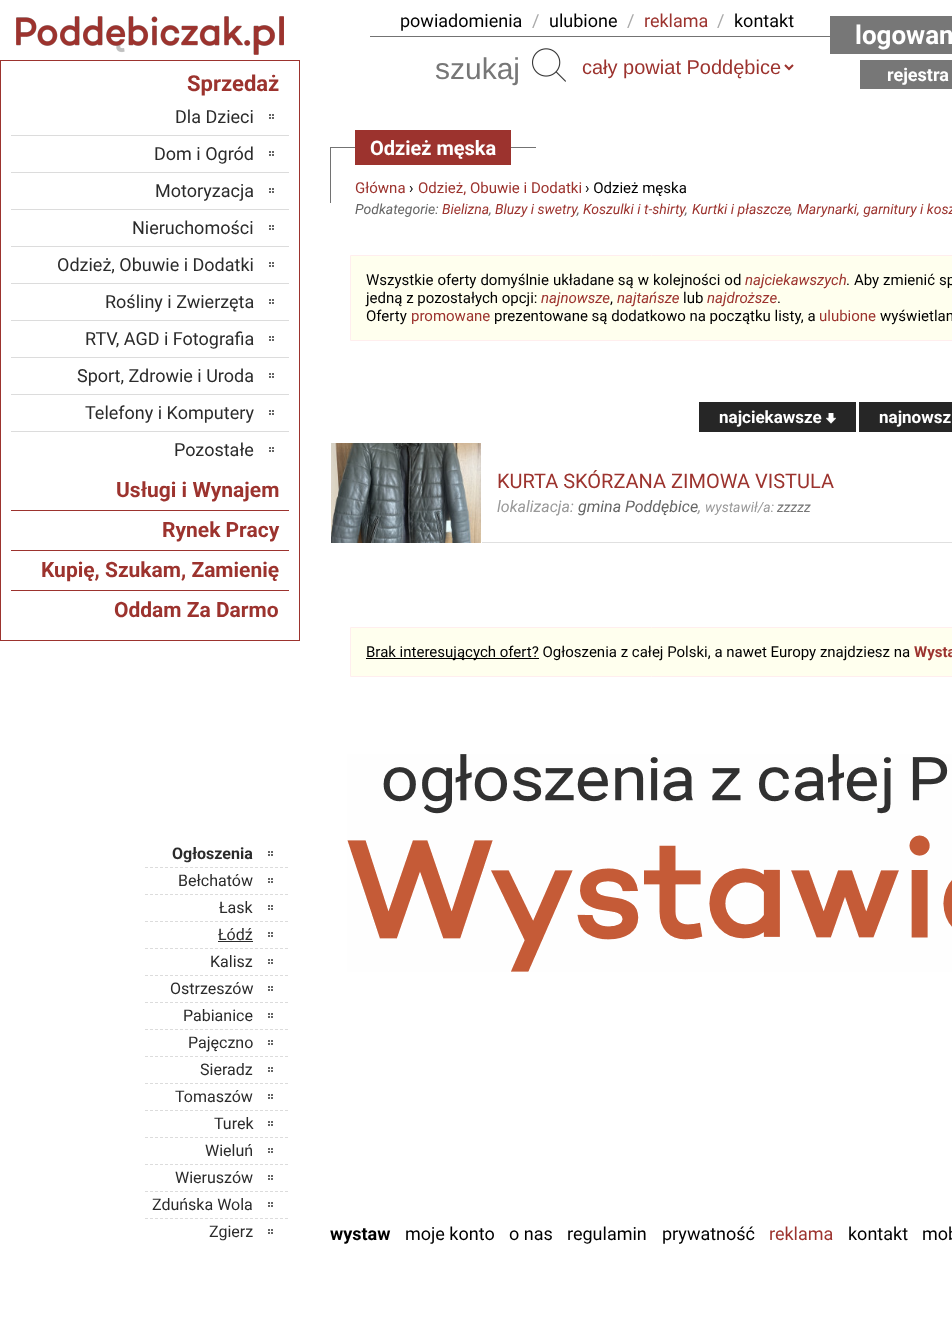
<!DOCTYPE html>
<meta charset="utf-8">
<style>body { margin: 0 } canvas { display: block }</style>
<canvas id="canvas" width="952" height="1332"></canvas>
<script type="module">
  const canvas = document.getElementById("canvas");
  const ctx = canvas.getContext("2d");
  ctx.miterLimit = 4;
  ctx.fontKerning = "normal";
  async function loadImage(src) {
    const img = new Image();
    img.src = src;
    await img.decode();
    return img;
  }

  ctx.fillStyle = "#ffffff";
  ctx.fillRect(0, 0, 952, 1332);
  ctx.drawImage(await loadImage("img1.png"), 16, 16, 268, 39);
  ctx.fillStyle = "#737373";
  ctx.fillRect(370, 36, 460, 1);
  ctx.font = "18px Roboto";
  ctx.fillStyle = "#000000";
  ctx.fillText("powiadomienia", 400, 27);
  ctx.fillStyle = "#aaaaaa";
  ctx.fillText("/", 532, 27);
  ctx.fillStyle = "#000000";
  ctx.fillText("ulubione", 549, 27);
  ctx.fillStyle = "#aaaaaa";
  ctx.fillText("/", 627, 27);
  ctx.fillStyle = "#9c332e";
  ctx.fillText("reklama", 644, 27);
  ctx.fillStyle = "#aaaaaa";
  ctx.fillText("/", 717, 27);
  ctx.fillStyle = "#000000";
  ctx.fillText("kontakt", 734, 27);
  ctx.fillStyle = "#777777";
  ctx.fillRect(830, 16, 122, 38);
  ctx.font = "bold 26px Roboto";
  ctx.fillStyle = "#ffffff";
  ctx.fillText("logowan", 855, 44);
  ctx.font = "30px Liberation Sans";
  ctx.fillStyle = "#777777";
  ctx.fillText("szukaj", 435, 79);
  ctx.drawImage(await loadImage("img2.png"), 532, 48, 34, 34);
  ctx.beginPath();
  ctx.moveTo(785, 65);
  ctx.lineTo(789, 69);
  ctx.lineTo(793, 65);
  ctx.strokeStyle = "#9c332e";
  ctx.lineWidth = 2;
  ctx.stroke();
  ctx.font = "20px Liberation Sans";
  ctx.fillStyle = "#9c332e";
  ctx.fillText("cały powiat Poddębice", 582, 74);
  ctx.fillStyle = "#777777";
  ctx.fillRect(860, 60, 92, 29);
  ctx.font = "bold 18px Roboto";
  ctx.fillStyle = "#ffffff";
  ctx.fillText("rejestra", 887, 81);
  ctx.lineWidth = 1;
  ctx.strokeRect(0.5, 60.5, 299, 580);
  ctx.font = "bold 22px Roboto";
  ctx.fillStyle = "#9c332e";
  ctx.fillText("Sprzedaż", 187, 91);
  ctx.fillStyle = "#dcdcdc";
  ctx.fillRect(11, 135, 278, 1);
  ctx.drawImage(await loadImage("img3.png"), 269, 114, 5, 5);
  ctx.font = "18px Roboto";
  ctx.fillStyle = "#2b2b2b";
  ctx.fillText("Dla Dzieci", 175, 123);
  ctx.fillStyle = "#dcdcdc";
  ctx.fillRect(11, 172, 278, 1);
  ctx.drawImage(await loadImage("img3.png"), 269, 151, 5, 5);
  ctx.fillStyle = "#2b2b2b";
  ctx.fillText("Dom i Ogród", 154, 160);
  ctx.fillStyle = "#dcdcdc";
  ctx.fillRect(11, 209, 278, 1);
  ctx.drawImage(await loadImage("img3.png"), 269, 188, 5, 5);
  ctx.fillStyle = "#2b2b2b";
  ctx.fillText("Motoryzacja", 155, 197);
  ctx.fillStyle = "#dcdcdc";
  ctx.fillRect(11, 246, 278, 1);
  ctx.drawImage(await loadImage("img3.png"), 269, 225, 5, 5);
  ctx.fillStyle = "#2b2b2b";
  ctx.fillText("Nieruchomości", 132, 234);
  ctx.fillStyle = "#dcdcdc";
  ctx.fillRect(11, 283, 278, 1);
  ctx.drawImage(await loadImage("img3.png"), 269, 262, 5, 5);
  ctx.fillStyle = "#2b2b2b";
  ctx.fillText("Odzież, Obuwie i Dodatki", 57, 271);
  ctx.fillStyle = "#dcdcdc";
  ctx.fillRect(11, 320, 278, 1);
  ctx.drawImage(await loadImage("img3.png"), 269, 299, 5, 5);
  ctx.fillStyle = "#2b2b2b";
  ctx.fillText("Rośliny i Zwierzęta", 105, 308);
  ctx.fillStyle = "#dcdcdc";
  ctx.fillRect(11, 357, 278, 1);
  ctx.drawImage(await loadImage("img3.png"), 269, 336, 5, 5);
  ctx.fillStyle = "#2b2b2b";
  ctx.fillText("RTV, AGD i Fotografia", 85, 345);
  ctx.fillStyle = "#dcdcdc";
  ctx.fillRect(11, 394, 278, 1);
  ctx.drawImage(await loadImage("img3.png"), 269, 373, 5, 5);
  ctx.fillStyle = "#2b2b2b";
  ctx.fillText("Sport, Zdrowie i Uroda", 77, 382);
  ctx.fillStyle = "#dcdcdc";
  ctx.fillRect(11, 431, 278, 1);
  ctx.drawImage(await loadImage("img3.png"), 269, 410, 5, 5);
  ctx.fillStyle = "#2b2b2b";
  ctx.fillText("Telefony i Komputery", 85, 419);
  ctx.drawImage(await loadImage("img3.png"), 269, 447, 5, 5);
  ctx.fillText("Pozostałe", 174, 456);
  ctx.fillStyle = "#9c332e";
  ctx.fillRect(11, 510, 278, 1);
  ctx.font = "bold 21px Roboto";
  ctx.fillText("Usługi i Wynajem", 116, 497);
  ctx.fillRect(11, 550, 278, 1);
  ctx.fillText("Rynek Pracy", 162, 537);
  ctx.fillRect(11, 590, 278, 1);
  ctx.fillText("Kupię, Szukam, Zamienię", 41, 577);
  ctx.fillText("Oddam Za Darmo", 114, 617);
  ctx.fillStyle = "#737373";
  ctx.fillRect(330, 147, 206, 1);
  ctx.fillStyle = "#9c332e";
  ctx.fillRect(355, 130, 156, 35);
  ctx.font = "bold 20px Roboto";
  ctx.fillStyle = "#ffffff";
  ctx.fillText("Odzież męska", 370, 155);
  ctx.fillStyle = "#727272";
  ctx.fillRect(330, 148, 1, 55);
  ctx.font = "15px Roboto";
  ctx.fillStyle = "#9c332e";
  ctx.fillText("Główna", 355, 193);
  ctx.fillStyle = "#000000";
  ctx.fillText("›", 409, 193);
  ctx.fillStyle = "#9c332e";
  ctx.fillText("Odzież, Obuwie i Dodatki", 418, 193);
  ctx.fillStyle = "#000000";
  ctx.fillText("› Odzież męska", 585, 193);
  ctx.font = "italic 14px Roboto";
  ctx.fillStyle = "#666666";
  ctx.fillText("Podkategorie:", 355, 214);
  ctx.fillStyle = "#9c332e";
  ctx.fillText("Bielizna", 442, 214);
  ctx.fillStyle = "#666666";
  ctx.fillText(",", 489, 214);
  ctx.fillStyle = "#9c332e";
  ctx.fillText("Bluzy i swetry", 495, 214);
  ctx.fillText("Koszulki i t-shirty", 583, 214);
  ctx.fillText("Kurtki i płaszcze", 692, 214);
  ctx.fillText("Marynarki, garnitury i kosz", 797, 214);
  ctx.fillStyle = "#666666";
  ctx.fillText(",", 577, 214);
  ctx.fillText(",", 685, 214);
  ctx.fillText(",", 790, 214);
  ctx.fillStyle = "#ffffee";
  ctx.beginPath();
  ctx.rect(350.5, 255.5, 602, 85);
  ctx.fill();
  ctx.strokeStyle = "#ffeeee";
  ctx.stroke();
  ctx.wordSpacing = "0.25px";
  ctx.font = "15px Roboto";
  ctx.fillStyle = "#000000";
  ctx.fillText("Wszystkie oferty domyślnie układane są w kolejności od", 366, 285);
  ctx.wordSpacing = "0px";
  ctx.font = "italic 15px Roboto";
  ctx.fillStyle = "#9c332e";
  ctx.fillText("najciekawszych", 745, 285);
  ctx.wordSpacing = "0.25px";
  ctx.font = "15px Roboto";
  ctx.fillStyle = "#000000";
  ctx.fillText(". Aby zmienić sp", 846, 285);
  ctx.wordSpacing = "0px";
  ctx.fillText("jedną z pozostałych opcji:", 366, 303);
  ctx.font = "italic 15px Roboto";
  ctx.fillStyle = "#9c332e";
  ctx.fillText("najnowsze", 541, 303);
  ctx.font = "15px Roboto";
  ctx.fillStyle = "#000000";
  ctx.fillText(",", 610, 303);
  ctx.font = "italic 15px Roboto";
  ctx.fillStyle = "#9c332e";
  ctx.fillText("najtańsze", 617, 303);
  ctx.font = "15px Roboto";
  ctx.fillStyle = "#000000";
  ctx.fillText("lub", 683, 303);
  ctx.font = "italic 15px Roboto";
  ctx.fillStyle = "#9c332e";
  ctx.fillText("najdroższe", 707, 303);
  ctx.font = "15px Roboto";
  ctx.fillStyle = "#000000";
  ctx.fillText(".", 777, 303);
  ctx.fillText("Oferty", 366, 321);
  ctx.fillStyle = "#9c332e";
  ctx.fillText("promowane", 411, 321);
  ctx.fillStyle = "#000000";
  ctx.fillText("prezentowane są dodatkowo na początku listy, a", 494, 321);
  ctx.fillStyle = "#9c332e";
  ctx.fillText("ulubione", 819, 321);
  ctx.fillStyle = "#000000";
  ctx.fillText("wyświetlan", 880, 321);
  ctx.fillStyle = "#262626";
  ctx.fillRect(699, 402, 157, 30);
  ctx.font = "bold 17px Roboto";
  ctx.fillStyle = "#ffffff";
  ctx.fillText("najciekawsze", 719, 423);
  ctx.drawImage(await loadImage("img4.png"), 826, 413, 10, 11);
  ctx.fillStyle = "#262626";
  ctx.fillRect(859, 402, 93, 30);
  ctx.fillStyle = "#ffffff";
  ctx.fillText("najnowsz", 879, 423);
  ctx.drawImage(await loadImage("img5.png"), 331, 443, 150, 100);
  ctx.fillStyle = "#e0e0e0";
  ctx.fillRect(482, 542, 470, 1);
  ctx.font = "20px Roboto";
  ctx.fillStyle = "#9c332e";
  ctx.fillText("KURTA SKÓRZANA ZIMOWA VISTULA", 497, 488);
  ctx.font = "italic 16px Roboto";
  ctx.fillStyle = "#999999";
  ctx.fillText("lokalizacja:", 497, 512);
  ctx.fillStyle = "#666666";
  ctx.fillText("gmina Poddębice", 578, 512);
  ctx.font = "italic 14px Roboto";
  ctx.fillStyle = "#999999";
  ctx.fillText("wystawił/a:", 705, 512);
  ctx.fillStyle = "#777777";
  ctx.fillText("zzzzz", 777, 512);
  ctx.font = "italic 16px Roboto";
  ctx.fillStyle = "#999999";
  ctx.fillText(",", 698, 512);
  ctx.fillStyle = "#ffffee";
  ctx.beginPath();
  ctx.rect(350.5, 627.5, 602, 49);
  ctx.fill();
  ctx.stroke();
  ctx.fillStyle = "#000000";
  ctx.fillRect(366, 658, 173, 1);
  ctx.font = "15px Roboto";
  ctx.fillText("Brak interesujących ofert? Ogłoszenia z całej Polski, a nawet Europy znajdziesz na", 366, 657);
  ctx.font = "bold 15px Roboto";
  ctx.fillStyle = "#9c332e";
  ctx.fillText("Wysta", 914, 657);
  ctx.beginPath();
  ctx.moveTo(145, 867.5);
  ctx.lineTo(288, 867.5);
  ctx.strokeStyle = "#dcdcdc";
  ctx.setLineDash([3, 2]);
  ctx.stroke();
  ctx.drawImage(await loadImage("img3.png"), 268, 851, 5, 5);
  ctx.font = "bold 16px Roboto";
  ctx.fillStyle = "#2b2b2b";
  ctx.fillText("Ogłoszenia", 172, 859);
  ctx.beginPath();
  ctx.moveTo(145, 894.5);
  ctx.lineTo(288, 894.5);
  ctx.stroke();
  ctx.drawImage(await loadImage("img3.png"), 268, 878, 5, 5);
  ctx.font = "16px Roboto";
  ctx.fillText("Bełchatów", 178, 886);
  ctx.beginPath();
  ctx.moveTo(145, 921.5);
  ctx.lineTo(288, 921.5);
  ctx.stroke();
  ctx.drawImage(await loadImage("img3.png"), 268, 905, 5, 5);
  ctx.fillText("Łask", 219, 913);
  ctx.beginPath();
  ctx.moveTo(145, 948.5);
  ctx.lineTo(288, 948.5);
  ctx.stroke();
  ctx.drawImage(await loadImage("img3.png"), 268, 932, 5, 5);
  ctx.fillText("Łódź", 218, 940);
  ctx.fillRect(218, 941, 35, 1);
  ctx.beginPath();
  ctx.moveTo(145, 975.5);
  ctx.lineTo(288, 975.5);
  ctx.stroke();
  ctx.drawImage(await loadImage("img3.png"), 268, 959, 5, 5);
  ctx.fillText("Kalisz", 210, 967);
  ctx.beginPath();
  ctx.moveTo(145, 1002.5);
  ctx.lineTo(288, 1002.5);
  ctx.stroke();
  ctx.drawImage(await loadImage("img3.png"), 268, 986, 5, 5);
  ctx.fillText("Ostrzeszów", 170, 994);
  ctx.beginPath();
  ctx.moveTo(145, 1029.5);
  ctx.lineTo(288, 1029.5);
  ctx.stroke();
  ctx.drawImage(await loadImage("img3.png"), 268, 1013, 5, 5);
  ctx.fillText("Pabianice", 183, 1021);
  ctx.beginPath();
  ctx.moveTo(145, 1056.5);
  ctx.lineTo(288, 1056.5);
  ctx.stroke();
  ctx.drawImage(await loadImage("img3.png"), 268, 1040, 5, 5);
  ctx.fillText("Pajęczno", 188, 1048);
  ctx.beginPath();
  ctx.moveTo(145, 1083.5);
  ctx.lineTo(288, 1083.5);
  ctx.stroke();
  ctx.drawImage(await loadImage("img3.png"), 268, 1067, 5, 5);
  ctx.fillText("Sieradz", 200, 1075);
  ctx.beginPath();
  ctx.moveTo(145, 1110.5);
  ctx.lineTo(288, 1110.5);
  ctx.stroke();
  ctx.drawImage(await loadImage("img3.png"), 268, 1094, 5, 5);
  ctx.fillText("Tomaszów", 175, 1102);
  ctx.beginPath();
  ctx.moveTo(145, 1137.5);
  ctx.lineTo(288, 1137.5);
  ctx.stroke();
  ctx.drawImage(await loadImage("img3.png"), 268, 1121, 5, 5);
  ctx.fillText("Turek", 214, 1129);
  ctx.beginPath();
  ctx.moveTo(145, 1164.5);
  ctx.lineTo(288, 1164.5);
  ctx.stroke();
  ctx.drawImage(await loadImage("img3.png"), 268, 1148, 5, 5);
  ctx.fillText("Wieluń", 205, 1156);
  ctx.beginPath();
  ctx.moveTo(145, 1191.5);
  ctx.lineTo(288, 1191.5);
  ctx.stroke();
  ctx.drawImage(await loadImage("img3.png"), 268, 1175, 5, 5);
  ctx.fillText("Wieruszów", 175, 1183);
  ctx.beginPath();
  ctx.moveTo(145, 1218.5);
  ctx.lineTo(288, 1218.5);
  ctx.stroke();
  ctx.drawImage(await loadImage("img3.png"), 268, 1202, 5, 5);
  ctx.fillText("Zduńska Wola", 152, 1210);
  ctx.drawImage(await loadImage("img3.png"), 268, 1229, 5, 5);
  ctx.fillText("Zgierz", 209, 1237);
  ctx.drawImage(await loadImage("img6.png"), 347, 754, 605, 218);
  ctx.font = "bold 18px Roboto";
  ctx.fillStyle = "#000000";
  ctx.fillText("wystaw", 330, 1240);
  ctx.font = "18px Roboto";
  ctx.fillText("moje konto", 405, 1240);
  ctx.fillText("o nas", 509, 1240);
  ctx.fillText("regulamin", 567, 1240);
  ctx.fillText("prywatność", 662, 1240);
  ctx.fillStyle = "#9c332e";
  ctx.fillText("reklama", 769, 1240);
  ctx.fillStyle = "#000000";
  ctx.fillText("kontakt", 848, 1240);
  ctx.fillText("mob", 922, 1240);
</script>
